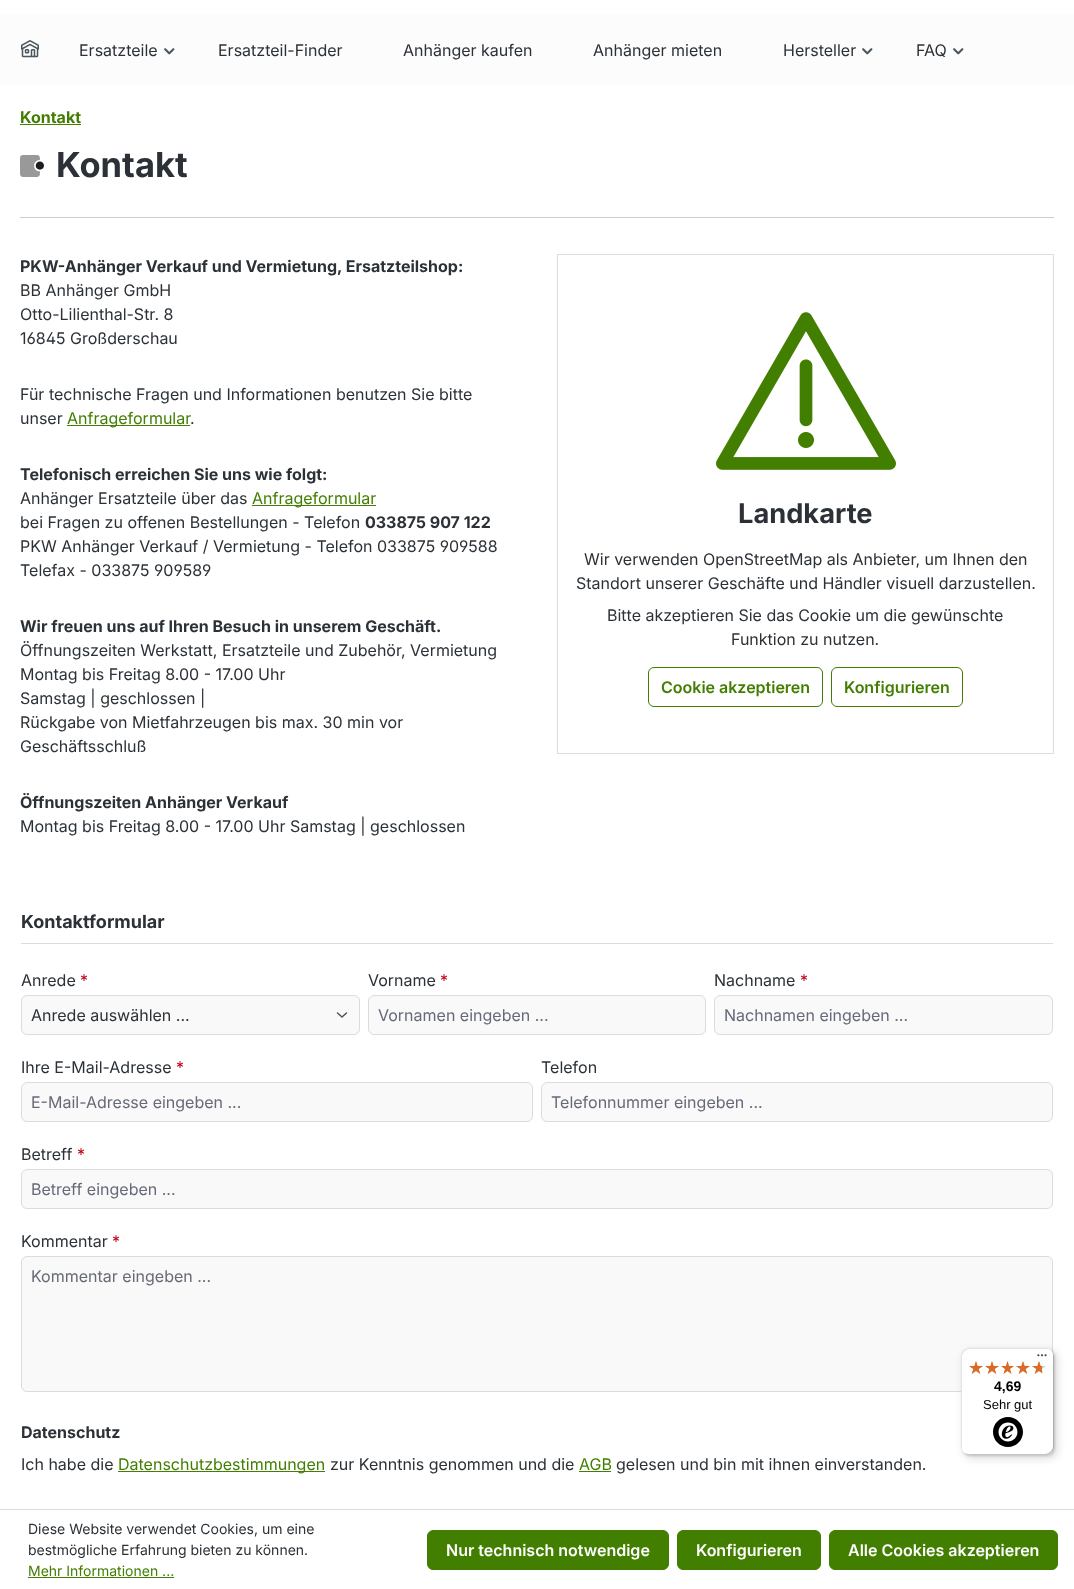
<!DOCTYPE html>
<meta charset="utf-8">
<style>body { margin: 0 } canvas { display: block }</style>
<canvas id="canvas" width="1074" height="1589"></canvas>
<script type="module">
  const canvas = document.getElementById("canvas");
  const ctx = canvas.getContext("2d");
  ctx.miterLimit = 4;
  ctx.fontKerning = "normal";
  async function loadImage(src) {
    const img = new Image();
    img.src = src;
    await img.decode();
    return img;
  }

  ctx.fillStyle = "#ffffff";
  ctx.fillRect(0, 0, 1074, 1589);
  ctx.fillStyle = "#fcfcfc";
  ctx.fillRect(0, 14, 1074, 71);
  ctx.drawImage(await loadImage("img1.png"), 21, 40, 18, 18);
  ctx.font = "16px Inter";
  ctx.fillStyle = "#2b3136";
  ctx.fillText("Ersatzteile", 79, 56);
  ctx.drawImage(await loadImage("img2.png"), 164, 48, 11, 7);
  ctx.fillText("Ersatzteil-Finder", 218, 56);
  ctx.fillText("Anhänger kaufen", 403, 56);
  ctx.fillText("Anhänger mieten", 593, 56);
  ctx.fillText("Hersteller", 783, 56);
  ctx.drawImage(await loadImage("img2.png"), 862, 48, 11, 7);
  ctx.fillText("FAQ", 916, 56);
  ctx.drawImage(await loadImage("img2.png"), 953, 48, 11, 7);
  ctx.font = "bold 16px Inter";
  ctx.fillStyle = "#427e00";
  ctx.fillText("Kontakt", 20, 123);
  ctx.fillRect(20, 124, 61, 1);
  ctx.drawImage(await loadImage("img3.png"), 20, 155, 24, 22);
  ctx.font = "bold 34.5px Inter";
  ctx.fillStyle = "#2b3136";
  ctx.fillText("Kontakt", 56, 177);
  ctx.fillStyle = "#cacccd";
  ctx.fillRect(20, 217, 1034, 1);
  ctx.font = "bold 16px Inter";
  ctx.fillStyle = "#2b3136";
  ctx.fillText("PKW-Anhänger Verkauf und Vermietung, Ersatzteilshop:", 20, 272);
  ctx.font = "16px Inter";
  ctx.fillText("BB Anhänger GmbH", 20, 296);
  ctx.fillText("Otto-Lilienthal-Str. 8", 20, 320);
  ctx.font = "16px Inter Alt";
  ctx.fillText("16845 Großderschau", 20, 344);
  ctx.font = "16px Inter";
  ctx.fillText("Für technische Fragen und Informationen benutzen Sie bitte", 20, 400);
  ctx.fillText("unser", 20, 424);
  ctx.fillStyle = "#427e00";
  ctx.fillRect(67, 425, 123, 1);
  ctx.fillText("Anfrageformular", 67, 424);
  ctx.fillStyle = "#2b3136";
  ctx.fillText(".", 190, 424);
  ctx.font = "bold 16px Inter";
  ctx.fillText("Telefonisch erreichen Sie uns wie folgt:", 20, 480);
  ctx.font = "16px Inter";
  ctx.fillText("Anhänger Ersatzteile über das", 20, 504);
  ctx.fillStyle = "#427e00";
  ctx.fillRect(252, 505, 124, 1);
  ctx.fillText("Anfrageformular", 252, 504);
  ctx.fillStyle = "#2b3136";
  ctx.fillText("bei Fragen zu offenen Bestellungen - Telefon", 20, 528);
  ctx.font = "bold 16px Inter";
  ctx.fillText("033875 907 122", 365, 528);
  ctx.font = "16px Inter Alt";
  ctx.fillText("PKW Anhänger Verkauf / Vermietung - Telefon 033875 909588", 20, 552);
  ctx.fillText("Telefax - 033875 909589", 20, 576);
  ctx.font = "bold 16px Inter";
  ctx.fillText("Wir freuen uns auf Ihren Besuch in unserem Geschäft.", 20, 632);
  ctx.font = "16px Inter";
  ctx.fillText("Öffnungszeiten Werkstatt, Ersatzteile und Zubehör, Vermietung", 20, 656);
  ctx.fillText("Montag bis Freitag 8.00 - 17.00 Uhr", 20, 680);
  ctx.fillText("Samstag | geschlossen |", 20, 704);
  ctx.fillText("Rückgabe von Mietfahrzeugen bis max. 30 min vor", 20, 728);
  ctx.fillText("Geschäftsschluß", 20, 752);
  ctx.font = "bold 16px Inter";
  ctx.fillText("Öffnungszeiten Anhänger Verkauf", 20, 808);
  ctx.font = "16px Inter";
  ctx.fillText("Montag bis Freitag 8.00 - 17.00 Uhr Samstag | geschlossen", 20, 832);
  ctx.strokeStyle = "#dcdcdc";
  ctx.strokeRect(557.5, 254.5, 496, 499);
  ctx.drawImage(await loadImage("img4.png"), 716, 312, 180, 158);
  ctx.font = "bold 27.25px Inter";
  ctx.fillText("Landkarte", 738, 523);
  ctx.font = "16px Inter";
  ctx.fillText("Wir verwenden OpenStreetMap als Anbieter, um Ihnen den", 584, 565);
  ctx.fillText("Standort unserer Geschäfte und Händler visuell darzustellen.", 576, 589);
  ctx.fillText("Bitte akzeptieren Sie das Cookie um die gewünschte", 607, 621);
  ctx.fillText("Funktion zu nutzen.", 731, 645);
  ctx.beginPath();
  ctx.roundRect(648.5, 667.5, 174, 39, 5.5);
  ctx.strokeStyle = "#427e00";
  ctx.stroke();
  ctx.font = "600 16px Inter";
  ctx.fillStyle = "#427e00";
  ctx.fillText("Cookie akzeptieren", 661, 693);
  ctx.beginPath();
  ctx.roundRect(831.5, 667.5, 131, 39, 5.5);
  ctx.stroke();
  ctx.fillText("Konfigurieren", 844, 693);
  ctx.fillStyle = "#dcdcdc";
  ctx.fillRect(21, 943, 1032, 1);
  ctx.font = "bold 18px Inter";
  ctx.fillStyle = "#2b3136";
  ctx.fillText("Kontaktformular", 21, 928);
  ctx.font = "16px Inter";
  ctx.fillText("Anrede", 21, 986);
  ctx.fillStyle = "#c20017";
  ctx.fillText("*", 80, 986);
  ctx.fillStyle = "#f9f9f9";
  ctx.beginPath();
  ctx.roundRect(21, 995, 339, 40, 6);
  ctx.fill();
  ctx.beginPath();
  ctx.moveTo(337.5, 1013);
  ctx.lineTo(342, 1017);
  ctx.lineTo(346.5, 1013);
  ctx.strokeStyle = "#4a545b";
  ctx.lineWidth = 1.5;
  ctx.lineCap = "round";
  ctx.lineJoin = "round";
  ctx.stroke();
  ctx.beginPath();
  ctx.roundRect(21.5, 995.5, 338, 39, 5.5);
  ctx.strokeStyle = "#dcdcdc";
  ctx.lineWidth = 1;
  ctx.lineJoin = "miter";
  ctx.stroke();
  ctx.fillStyle = "#2b3136";
  ctx.fillText("Anrede auswählen ...", 31, 1021);
  ctx.fillText("Vorname", 368, 986);
  ctx.fillStyle = "#c20017";
  ctx.fillText("*", 440, 986);
  ctx.fillStyle = "#f9f9f9";
  ctx.beginPath();
  ctx.roundRect(368.5, 995.5, 337, 39, 5.5);
  ctx.fill();
  ctx.stroke();
  ctx.fillStyle = "#666977";
  ctx.fillText("Vornamen eingeben ...", 378, 1021);
  ctx.fillStyle = "#2b3136";
  ctx.fillText("Nachname", 714, 986);
  ctx.fillStyle = "#c20017";
  ctx.fillText("*", 800, 986);
  ctx.fillStyle = "#f9f9f9";
  ctx.beginPath();
  ctx.roundRect(714.5, 995.5, 338, 39, 5.5);
  ctx.fill();
  ctx.stroke();
  ctx.fillStyle = "#666977";
  ctx.fillText("Nachnamen eingeben ...", 724, 1021);
  ctx.fillStyle = "#2b3136";
  ctx.fillText("Ihre E-Mail-Adresse", 21, 1073);
  ctx.fillStyle = "#c20017";
  ctx.fillText("*", 176, 1073);
  ctx.fillStyle = "#f9f9f9";
  ctx.beginPath();
  ctx.roundRect(21.5, 1082.5, 511, 39, 5.5);
  ctx.fill();
  ctx.stroke();
  ctx.fillStyle = "#666977";
  ctx.fillText("E-Mail-Adresse eingeben ...", 31, 1108);
  ctx.fillStyle = "#2b3136";
  ctx.fillText("Telefon", 541, 1073);
  ctx.fillStyle = "#f9f9f9";
  ctx.beginPath();
  ctx.roundRect(541.5, 1082.5, 511, 39, 5.5);
  ctx.fill();
  ctx.stroke();
  ctx.fillStyle = "#666977";
  ctx.fillText("Telefonnummer eingeben ...", 551, 1108);
  ctx.fillStyle = "#2b3136";
  ctx.fillText("Betreff", 21, 1160);
  ctx.fillStyle = "#c20017";
  ctx.fillText("*", 77, 1160);
  ctx.fillStyle = "#f9f9f9";
  ctx.beginPath();
  ctx.roundRect(21.5, 1169.5, 1031, 39, 5.5);
  ctx.fill();
  ctx.stroke();
  ctx.fillStyle = "#666977";
  ctx.fillText("Betreff eingeben ...", 31, 1195);
  ctx.fillStyle = "#2b3136";
  ctx.fillText("Kommentar", 21, 1247);
  ctx.fillStyle = "#c20017";
  ctx.fillText("*", 112, 1247);
  ctx.fillStyle = "#f9f9f9";
  ctx.beginPath();
  ctx.roundRect(21.5, 1256.5, 1031, 135, 5.5);
  ctx.fill();
  ctx.stroke();
  ctx.fillStyle = "#666977";
  ctx.fillText("Kommentar eingeben ...", 31, 1282);
  ctx.font = "bold 16px Inter";
  ctx.fillStyle = "#2b3136";
  ctx.fillText("Datenschutz", 21, 1438);
  ctx.font = "16px Inter";
  ctx.fillText("Ich habe die", 21, 1470);
  ctx.fillStyle = "#427e00";
  ctx.fillRect(118, 1471, 207, 1);
  ctx.fillText("Datenschutzbestimmungen", 118, 1470);
  ctx.fillStyle = "#2b3136";
  ctx.fillText("zur Kenntnis genommen und die", 330, 1470);
  ctx.fillStyle = "#427e00";
  ctx.fillText("AGB", 579, 1470);
  ctx.fillRect(579, 1471, 32, 1);
  ctx.fillStyle = "#2b3136";
  ctx.fillText("gelesen und bin mit ihnen einverstanden.", 616, 1470);
  ctx.fillStyle = "rgba(0, 0, 0, 0.15)";
  ctx.filter = "blur(4px)";
  ctx.beginPath();
  ctx.roundRect(964, 1351, 93, 107, 8);
  ctx.fill();
  ctx.filter = "none";
  ctx.filter = "blur(1px)";
  ctx.beginPath();
  ctx.roundRect(962, 1349, 93, 107, 8);
  ctx.fill();
  ctx.filter = "none";
  ctx.fillStyle = "#ffffff";
  ctx.beginPath();
  ctx.roundRect(961, 1348, 93, 107, 8);
  ctx.fill();
  ctx.fillStyle = "#e5e5e5";
  ctx.beginPath();
  ctx.moveTo(970, 1349);
  ctx.lineTo(1047, 1349);
  ctx.bezierCurveTo(1049, 1349, 1051, 1350, 1053, 1352);
  ctx.bezierCurveTo(1051, 1350, 1049, 1348, 1046, 1348);
  ctx.lineTo(969, 1348);
  ctx.bezierCurveTo(965, 1348, 961, 1352, 961, 1356);
  ctx.lineTo(961, 1447);
  ctx.bezierCurveTo(961, 1450, 963, 1452, 965, 1454);
  ctx.bezierCurveTo(963, 1452, 962, 1450, 962, 1448);
  ctx.lineTo(962, 1357);
  ctx.bezierCurveTo(962, 1353, 966, 1349, 970, 1349);
  ctx.closePath();
  ctx.fill();
  ctx.fillStyle = "#cccccc";
  ctx.beginPath();
  ctx.moveTo(962, 1451);
  ctx.bezierCurveTo(964, 1453, 966, 1455, 969, 1455);
  ctx.lineTo(1046, 1455);
  ctx.bezierCurveTo(1050, 1455, 1054, 1451, 1054, 1447);
  ctx.lineTo(1054, 1356);
  ctx.bezierCurveTo(1054, 1353, 1052, 1351, 1050, 1349);
  ctx.bezierCurveTo(1052, 1351, 1053, 1353, 1053, 1355);
  ctx.lineTo(1053, 1446);
  ctx.bezierCurveTo(1053, 1450, 1049, 1454, 1045, 1454);
  ctx.lineTo(968, 1454);
  ctx.bezierCurveTo(966, 1454, 964, 1453, 962, 1451);
  ctx.closePath();
  ctx.fill();
  ctx.fillStyle = "rgba(50, 50, 50, 0.2)";
  ctx.beginPath();
  ctx.moveTo(963, 1452);
  ctx.bezierCurveTo(964, 1454, 967, 1455, 969, 1455);
  ctx.lineTo(1046, 1455);
  ctx.bezierCurveTo(1050, 1455, 1054, 1451, 1054, 1447);
  ctx.lineTo(1054, 1356);
  ctx.bezierCurveTo(1054, 1354, 1053, 1351, 1051, 1350);
  ctx.bezierCurveTo(1052, 1351, 1053, 1353, 1053, 1355);
  ctx.lineTo(1053, 1446);
  ctx.bezierCurveTo(1053, 1451, 1050, 1454, 1045, 1454);
  ctx.lineTo(968, 1454);
  ctx.bezierCurveTo(966, 1454, 964, 1453, 963, 1452);
  ctx.closePath();
  ctx.fill();
  ctx.drawImage(await loadImage("img5.png"), 1037, 1354, 10, 3);
  ctx.fillStyle = "rgba(255, 255, 255, 0.3)";
  ctx.beginPath();
  ctx.moveTo(963, 1452);
  ctx.bezierCurveTo(964, 1454, 967, 1455, 969, 1455);
  ctx.lineTo(1046, 1455);
  ctx.bezierCurveTo(1050, 1455, 1054, 1451, 1054, 1447);
  ctx.lineTo(1054, 1446);
  ctx.bezierCurveTo(1054, 1451, 1050, 1454, 1046, 1454);
  ctx.lineTo(968, 1454);
  ctx.bezierCurveTo(966, 1454, 964, 1453, 963, 1452);
  ctx.closePath();
  ctx.fill();
  ctx.drawImage(await loadImage("img6.png"), 969, 1361, 14, 13);
  ctx.drawImage(await loadImage("img6.png"), 985, 1361, 14, 13);
  ctx.drawImage(await loadImage("img7.png"), 1001, 1361, 13, 13);
  ctx.drawImage(await loadImage("img6.png"), 1016, 1361, 14, 13);
  ctx.drawImage(await loadImage("img6.png"), 1032, 1361, 14, 13);
  ctx.drawImage(await loadImage("img8.png"), 969, 1361, 14, 13);
  ctx.drawImage(await loadImage("img8.png"), 985, 1361, 14, 13);
  ctx.drawImage(await loadImage("img9.png"), 1001, 1361, 13, 13);
  ctx.drawImage(await loadImage("img8.png"), 1016, 1361, 14, 13);
  ctx.drawImage(await loadImage("img10.png"), 1032, 1361, 10, 13);
  ctx.font = "bold 14px Liberation Sans";
  ctx.fillStyle = "#000000";
  ctx.fillText("4,69", 994, 1391);
  ctx.font = "13px Liberation Sans";
  ctx.fillText("Sehr gut", 983, 1409);
  ctx.drawImage(await loadImage("img11.png"), 993, 1417, 30, 30);
  ctx.fillStyle = "#dcdcdc";
  ctx.fillRect(0, 1509, 1074, 1);
  ctx.font = "14px Inter";
  ctx.fillStyle = "#2b3136";
  ctx.fillText("Diese Website verwendet Cookies, um eine", 28, 1534);
  ctx.fillText("bestmögliche Erfahrung bieten zu können.", 28, 1555);
  ctx.fillStyle = "#427e00";
  ctx.fillText("Mehr Informationen ...", 28, 1576);
  ctx.fillRect(28, 1577, 146, 1);
  ctx.beginPath();
  ctx.roundRect(427.5, 1530.5, 241, 39, 5.5);
  ctx.fill();
  ctx.strokeStyle = "#427e00";
  ctx.stroke();
  ctx.font = "600 16px Inter";
  ctx.fillStyle = "#ffffff";
  ctx.fillText("Nur technisch notwendige", 446, 1556);
  ctx.fillStyle = "#427e00";
  ctx.beginPath();
  ctx.roundRect(677.5, 1530.5, 143, 39, 5.5);
  ctx.fill();
  ctx.stroke();
  ctx.fillStyle = "#ffffff";
  ctx.fillText("Konfigurieren", 696, 1556);
  ctx.fillStyle = "#427e00";
  ctx.beginPath();
  ctx.roundRect(829.5, 1530.5, 228, 39, 5.5);
  ctx.fill();
  ctx.stroke();
  ctx.fillStyle = "#ffffff";
  ctx.fillText("Alle Cookies akzeptieren", 848, 1556);
</script>
